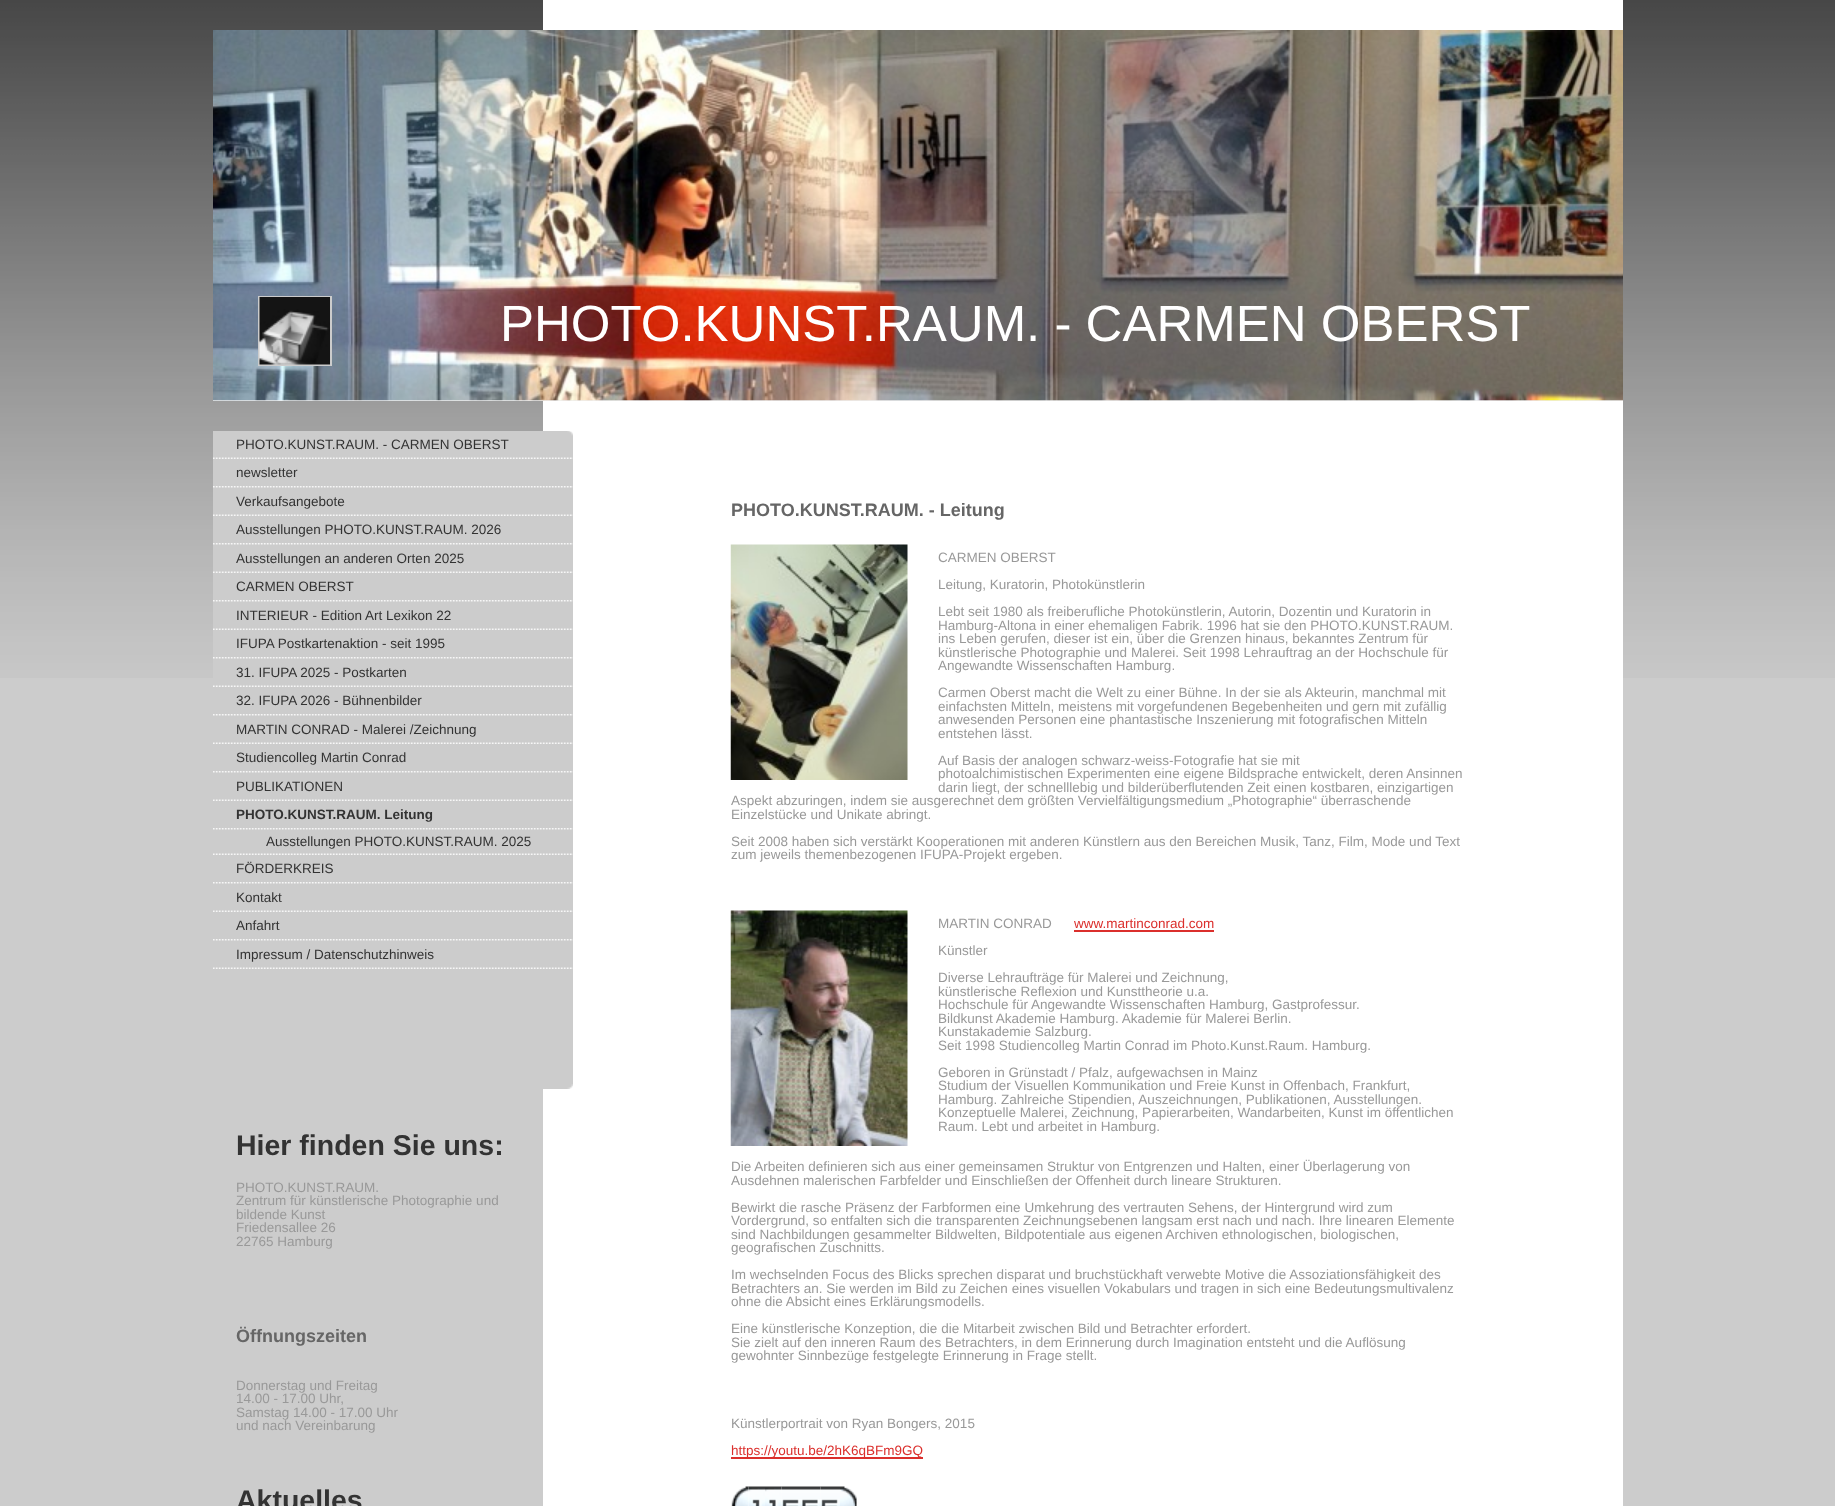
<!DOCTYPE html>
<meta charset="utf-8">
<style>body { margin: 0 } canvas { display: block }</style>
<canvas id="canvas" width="1835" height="1506"></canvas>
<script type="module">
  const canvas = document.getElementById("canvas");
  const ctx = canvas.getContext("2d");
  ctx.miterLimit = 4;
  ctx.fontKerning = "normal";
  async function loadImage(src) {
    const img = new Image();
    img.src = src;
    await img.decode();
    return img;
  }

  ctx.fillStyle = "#cccccc";
  ctx.fillRect(0, 0, 1835, 1506);
  ctx.drawImage(await loadImage("img1.png"), 0, 0, 1835, 678);
  ctx.fillStyle = "#ffffff";
  ctx.fillRect(543, 0, 1080, 1506);
  ctx.fillStyle = "#eeeeee";
  ctx.fillRect(213, 400, 1410, 1);
  ctx.drawImage(await loadImage("img2.png"), 213, 30, 1410, 371);
  ctx.strokeStyle = "#cccccc";
  ctx.lineWidth = 2;
  ctx.strokeRect(259, 297, 72, 68);
  ctx.drawImage(await loadImage("img3.png"), 259, 297, 71, 68);
  ctx.font = "51px Liberation Sans";
  ctx.fillStyle = "#ffffff";
  ctx.fillText("PHOTO.KUNST.RAUM. - CARMEN OBERST", 500, 341);
  ctx.fillStyle = "#cccccc";
  ctx.fillRect(213, 431, 360, 658);
  ctx.drawImage(await loadImage("img4.png"), 567, 1084, 6, 5);
  ctx.drawImage(await loadImage("img5.png"), 567, 431, 6, 5);
  ctx.drawImage(await loadImage("img6.png"), 213, 457, 360, 2);
  ctx.font = "13.5px Liberation Sans";
  ctx.fillStyle = "#333333";
  ctx.fillText("PHOTO.KUNST.RAUM. - CARMEN OBERST", 236, 449);
  ctx.drawImage(await loadImage("img7.png"), 213, 486, 360, 2);
  ctx.fillText("newsletter", 236, 477);
  ctx.drawImage(await loadImage("img6.png"), 213, 514, 360, 2);
  ctx.fillText("Verkaufsangebote", 236, 506);
  ctx.drawImage(await loadImage("img7.png"), 213, 543, 360, 2);
  ctx.fillText("Ausstellungen PHOTO.KUNST.RAUM. 2026", 236, 534);
  ctx.drawImage(await loadImage("img6.png"), 213, 571, 360, 2);
  ctx.fillText("Ausstellungen an anderen Orten 2025", 236, 563);
  ctx.drawImage(await loadImage("img7.png"), 213, 600, 360, 2);
  ctx.fillText("CARMEN OBERST", 236, 591);
  ctx.drawImage(await loadImage("img6.png"), 213, 628, 360, 2);
  ctx.fillText("INTERIEUR - Edition Art Lexikon 22", 236, 620);
  ctx.drawImage(await loadImage("img7.png"), 213, 657, 360, 2);
  ctx.fillText("IFUPA Postkartenaktion - seit 1995", 236, 648);
  ctx.drawImage(await loadImage("img6.png"), 213, 685, 360, 2);
  ctx.fillText("31. IFUPA 2025 - Postkarten", 236, 677);
  ctx.drawImage(await loadImage("img7.png"), 213, 714, 360, 2);
  ctx.fillText("32. IFUPA 2026 - Bühnenbilder", 236, 705);
  ctx.drawImage(await loadImage("img6.png"), 213, 742, 360, 2);
  ctx.fillText("MARTIN CONRAD - Malerei /Zeichnung", 236, 734);
  ctx.drawImage(await loadImage("img7.png"), 213, 771, 360, 2);
  ctx.fillText("Studiencolleg Martin Conrad", 236, 762);
  ctx.drawImage(await loadImage("img6.png"), 213, 799, 360, 2);
  ctx.fillText("PUBLIKATIONEN", 236, 791);
  ctx.drawImage(await loadImage("img7.png"), 213, 828, 360, 2);
  ctx.font = "bold 13.5px Liberation Sans";
  ctx.fillText("PHOTO.KUNST.RAUM. Leitung", 236, 819);
  ctx.drawImage(await loadImage("img6.png"), 213, 853, 360, 2);
  ctx.font = "13.5px Liberation Sans";
  ctx.fillText("Ausstellungen PHOTO.KUNST.RAUM. 2025", 266, 846);
  ctx.drawImage(await loadImage("img7.png"), 213, 882, 360, 2);
  ctx.fillText("FÖRDERKREIS", 236, 873);
  ctx.drawImage(await loadImage("img6.png"), 213, 910, 360, 2);
  ctx.fillText("Kontakt", 236, 902);
  ctx.drawImage(await loadImage("img7.png"), 213, 939, 360, 2);
  ctx.fillText("Anfahrt", 236, 930);
  ctx.drawImage(await loadImage("img6.png"), 213, 967, 360, 2);
  ctx.fillText("Impressum / Datenschutzhinweis", 236, 959);
  ctx.font = "bold 28.5px Liberation Sans";
  ctx.fillText("Hier finden Sie uns:", 236, 1155);
  ctx.font = "13.5px Liberation Sans";
  ctx.fillStyle = "#999999";
  ctx.fillText("PHOTO.KUNST.RAUM.", 236, 1192);
  ctx.fillText("Zentrum für künstlerische Photographie und", 236, 1205);
  ctx.fillText("bildende Kunst", 236, 1219);
  ctx.fillText("Friedensallee 26", 236, 1232);
  ctx.fillText("22765 Hamburg", 236, 1246);
  ctx.font = "bold 18px Liberation Sans";
  ctx.fillStyle = "#666666";
  ctx.fillText("Öffnungszeiten", 236, 1342);
  ctx.font = "13.5px Liberation Sans";
  ctx.fillStyle = "#999999";
  ctx.fillText("Donnerstag und Freitag", 236, 1390);
  ctx.fillText("14.00 - 17.00 Uhr,", 236, 1403);
  ctx.fillText("Samstag 14.00 - 17.00 Uhr", 236, 1417);
  ctx.fillText("und nach Vereinbarung", 236, 1430);
  ctx.font = "bold 28.5px Liberation Sans";
  ctx.fillStyle = "#333333";
  ctx.fillText("Aktuelles", 236, 1510);
  ctx.font = "bold 18px Liberation Sans";
  ctx.fillStyle = "#666666";
  ctx.fillText("PHOTO.KUNST.RAUM. - Leitung", 731, 516);
  ctx.drawImage(await loadImage("img8.png"), 730, 544, 178, 236);
  ctx.font = "13.5px Liberation Sans";
  ctx.fillStyle = "#999999";
  ctx.fillText("CARMEN OBERST", 938, 562);
  ctx.fillText("Leitung, Kuratorin, Photokünstlerin", 938, 589);
  ctx.fillText("Lebt seit 1980 als freiberufliche Photokünstlerin, Autorin, Dozentin und Kuratorin in", 938, 616);
  ctx.fillText("Hamburg-Altona in einer ehemaligen Fabrik. 1996 hat sie den PHOTO.KUNST.RAUM.", 938, 630);
  ctx.fillText("ins Leben gerufen, dieser ist ein, über die Grenzen hinaus, bekanntes Zentrum für", 938, 643);
  ctx.fillText("künstlerische Photographie und Malerei. Seit 1998 Lehrauftrag an der Hochschule für", 938, 657);
  ctx.fillText("Angewandte Wissenschaften Hamburg.", 938, 670);
  ctx.fillText("Carmen Oberst macht die Welt zu einer Bühne. In der sie als Akteurin, manchmal mit", 938, 697);
  ctx.fillText("einfachsten Mitteln, meistens mit vorgefundenen Begebenheiten und gern mit zufällig", 938, 711);
  ctx.fillText("anwesenden Personen eine phantastische Inszenierung mit fotografischen Mitteln", 938, 724);
  ctx.fillText("entstehen lässt.", 938, 738);
  ctx.fillText("Auf Basis der analogen schwarz-weiss-Fotografie hat sie mit", 938, 765);
  ctx.fillText("photoalchimistischen Experimenten eine eigene Bildsprache entwickelt, deren Ansinnen", 938, 778);
  ctx.fillText("darin liegt, der schnelllebig und bilderüberflutenden Zeit einen kostbaren, einzigartigen", 938, 792);
  ctx.fillText("Aspekt abzuringen, indem sie ausgerechnet dem größten Vervielfältigungsmedium „Photographie“ überraschende", 731, 805);
  ctx.fillText("Einzelstücke und Unikate abringt.", 731, 819);
  ctx.fillText("Seit 2008 haben sich verstärkt Kooperationen mit anderen Künstlern aus den Bereichen Musik, Tanz, Film, Mode und Text", 731, 846);
  ctx.fillText("zum jeweils themenbezogenen IFUPA-Projekt ergeben.", 731, 859);
  ctx.drawImage(await loadImage("img9.png"), 730, 910, 178, 236);
  ctx.fillText("MARTIN CONRAD", 938, 928);
  ctx.fillStyle = "#db2f2c";
  ctx.fillText("www.martinconrad.com", 1074, 928);
  ctx.fillRect(1074, 930, 140, 2);
  ctx.fillStyle = "#999999";
  ctx.fillText("Künstler", 938, 955);
  ctx.fillText("Diverse Lehraufträge für Malerei und Zeichnung,", 938, 982);
  ctx.fillText("künstlerische Reflexion und Kunsttheorie u.a.", 938, 996);
  ctx.fillText("Hochschule für Angewandte Wissenschaften Hamburg, Gastprofessur.", 938, 1009);
  ctx.fillText("Bildkunst Akademie Hamburg. Akademie für Malerei Berlin.", 938, 1023);
  ctx.fillText("Kunstakademie Salzburg.", 938, 1036);
  ctx.fillText("Seit 1998 Studiencolleg Martin Conrad im Photo.Kunst.Raum. Hamburg.", 938, 1050);
  ctx.fillText("Geboren in Grünstadt / Pfalz, aufgewachsen in Mainz", 938, 1077);
  ctx.fillText("Studium der Visuellen Kommunikation und Freie Kunst in Offenbach, Frankfurt,", 938, 1090);
  ctx.fillText("Hamburg. Zahlreiche Stipendien, Auszeichnungen, Publikationen, Ausstellungen.", 938, 1104);
  ctx.fillText("Konzeptuelle Malerei, Zeichnung, Papierarbeiten, Wandarbeiten, Kunst im öffentlichen", 938, 1117);
  ctx.fillText("Raum. Lebt und arbeitet in Hamburg.", 938, 1131);
  ctx.fillText("Die Arbeiten definieren sich aus einer gemeinsamen Struktur von Entgrenzen und Halten, einer Überlagerung von", 731, 1171);
  ctx.fillText("Ausdehnen malerischen Farbfelder und Einschließen der Offenheit durch lineare Strukturen.", 731, 1185);
  ctx.fillText("Bewirkt die rasche Präsenz der Farbformen eine Umkehrung des vertrauten Sehens, der Hintergrund wird zum", 731, 1212);
  ctx.fillText("Vordergrund, so entfalten sich die transparenten Zeichnungsebenen langsam erst nach und nach. Ihre linearen Elemente", 731, 1225);
  ctx.fillText("sind Nachbildungen gesammelter Bildwelten, Bildpotentiale aus eigenen Archiven ethnologischen, biologischen,", 731, 1239);
  ctx.fillText("geografischen Zuschnitts.", 731, 1252);
  ctx.fillText("Im wechselnden Focus des Blicks sprechen disparat und bruchstückhaft verwebte Motive die Assoziationsfähigkeit des", 731, 1279);
  ctx.fillText("Betrachters an. Sie werden im Bild zu Zeichen eines visuellen Vokabulars und tragen in sich eine Bedeutungsmultivalenz", 731, 1293);
  ctx.fillText("ohne die Absicht eines Erklärungsmodells.", 731, 1306);
  ctx.fillText("Eine künstlerische Konzeption, die die Mitarbeit zwischen Bild und Betrachter erfordert.", 731, 1333);
  ctx.fillText("Sie zielt auf den inneren Raum des Betrachters, in dem Erinnerung durch Imagination entsteht und die Auflösung", 731, 1347);
  ctx.fillText("gewohnter Sinnbezüge festgelegte Erinnerung in Frage stellt.", 731, 1360);
  ctx.fillText("Künstlerportrait von Ryan Bongers, 2015", 731, 1428);
  ctx.fillStyle = "#db2f2c";
  ctx.fillRect(731, 1457, 192, 2);
  ctx.fillText("https://youtu.be/2hK6qBFm9GQ", 731, 1455);
  ctx.drawImage(await loadImage("img10.png"), 731, 1486, 18, 20);
  ctx.drawImage(await loadImage("img11.png"), 748, 1486, 17, 20);
  ctx.drawImage(await loadImage("img12.png"), 765, 1486, 17, 20);
  ctx.drawImage(await loadImage("img13.png"), 781, 1486, 20, 20);
  ctx.drawImage(await loadImage("img14.png"), 801, 1486, 20, 20);
  ctx.drawImage(await loadImage("img15.png"), 820, 1486, 20, 20);
  ctx.drawImage(await loadImage("img16.png"), 840, 1486, 17, 20);
</script>
